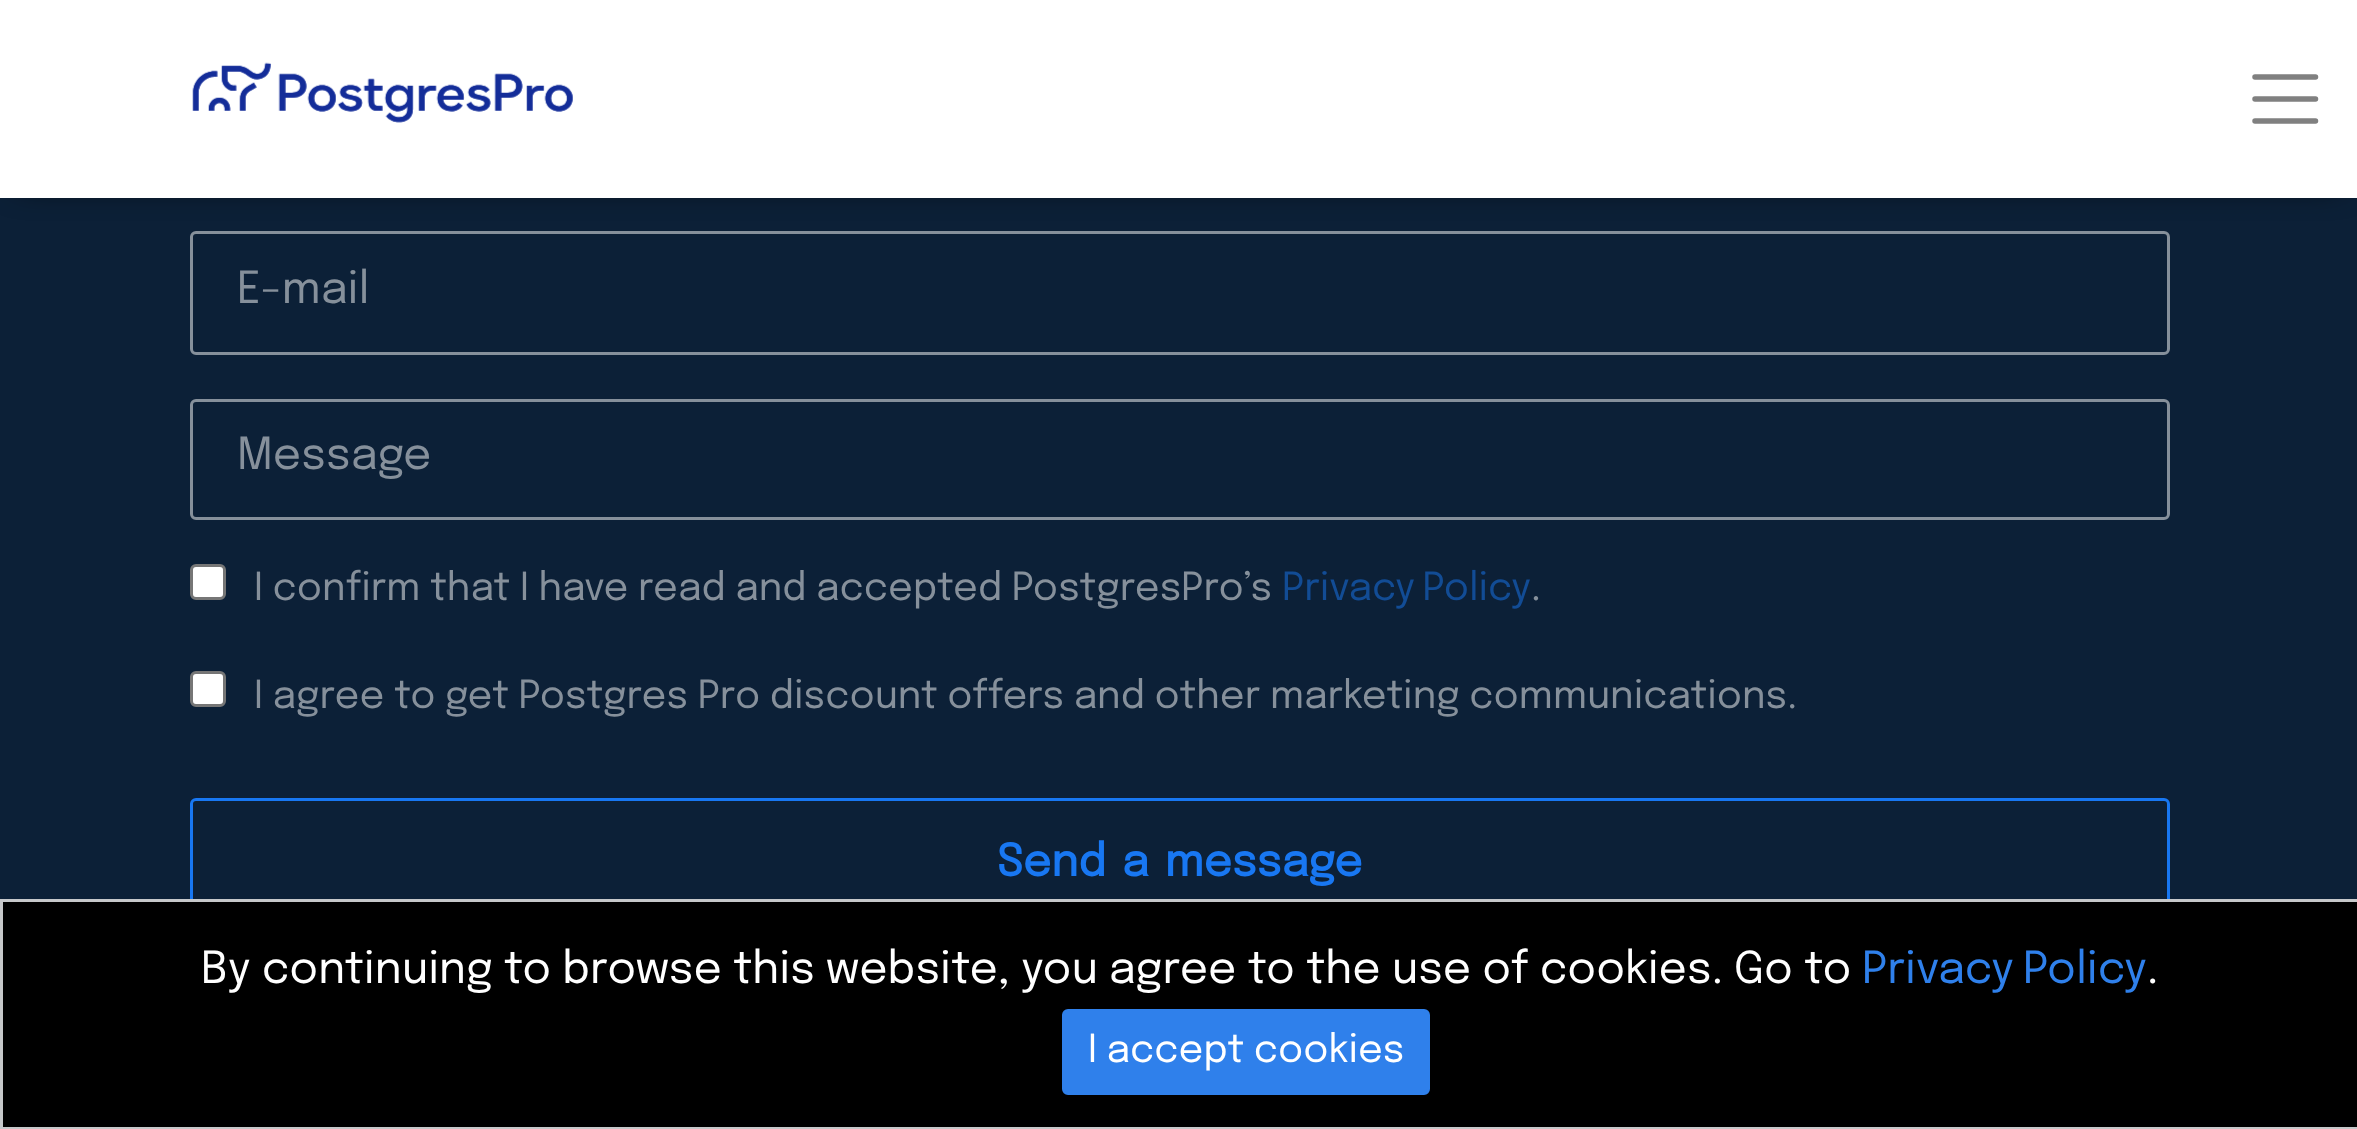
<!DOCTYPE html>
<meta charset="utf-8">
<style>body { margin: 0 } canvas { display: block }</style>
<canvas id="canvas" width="2357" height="1129"></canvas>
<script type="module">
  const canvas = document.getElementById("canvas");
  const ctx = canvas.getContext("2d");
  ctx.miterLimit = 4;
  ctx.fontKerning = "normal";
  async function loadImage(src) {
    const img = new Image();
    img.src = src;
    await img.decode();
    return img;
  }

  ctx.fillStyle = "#0c2037";
  ctx.fillRect(0, 0, 2357, 1129);
  ctx.beginPath();
  ctx.roundRect(191.5, 232.5, 1977, 121, 4.5);
  ctx.strokeStyle = "#86909b";
  ctx.lineWidth = 3;
  ctx.stroke();
  ctx.fillStyle = "#000000";
  ctx.filter = "blur(16.5px)";
  ctx.beginPath();
  ctx.rect(17, 17, 2326, 165);
  ctx.fill();
  ctx.filter = "none";
  ctx.fillStyle = "#ffffff";
  ctx.fillRect(0, 0, 2357, 198);
  ctx.drawImage(await loadImage("img1.png"), 192, 62, 381, 61);
  ctx.beginPath();
  ctx.moveTo(2255, 77);
  ctx.lineTo(2315.5, 77);
  ctx.moveTo(2255, 99);
  ctx.lineTo(2315.5, 99);
  ctx.moveTo(2255, 121);
  ctx.lineTo(2315.5, 121);
  ctx.strokeStyle = "#808080";
  ctx.lineWidth = 5.5;
  ctx.lineCap = "round";
  ctx.stroke();
  ctx.font = "44px Epilogue";
  ctx.fillStyle = "#86909b";
  ctx.fillText("E-mail", 237, 303);
  ctx.beginPath();
  ctx.roundRect(191.5, 400.5, 1977, 118, 4.5);
  ctx.strokeStyle = "#86909b";
  ctx.lineWidth = 3;
  ctx.stroke();
  ctx.fillText("Message", 237, 469);
  ctx.fillStyle = "#ffffff";
  ctx.beginPath();
  ctx.roundRect(191.5, 565.5, 33, 33, 4.5);
  ctx.fill();
  ctx.strokeStyle = "#767676";
  ctx.stroke();
  ctx.font = "38.5px Epilogue";
  ctx.fillStyle = "#86909b";
  ctx.fillText("I confirm that I have read and accepted PostgresPro’s", 254, 600);
  ctx.wordSpacing = "-2px";
  ctx.fillStyle = "#124c95";
  ctx.fillText("Privacy Policy", 1282, 600);
  ctx.wordSpacing = "0px";
  ctx.fillStyle = "#86909b";
  ctx.fillText(".", 1531, 600);
  ctx.fillStyle = "#ffffff";
  ctx.beginPath();
  ctx.roundRect(191.5, 672.5, 33, 33, 4.5);
  ctx.fill();
  ctx.stroke();
  ctx.fillStyle = "#86909b";
  ctx.fillText("I agree to get Postgres Pro discount offers and other marketing communications.", 254, 708);
  ctx.beginPath();
  ctx.roundRect(191.5, 799.5, 1977, 129, 4.5);
  ctx.strokeStyle = "#1877f2";
  ctx.stroke();
  ctx.wordSpacing = "5px";
  ctx.font = "bold 44px Epilogue";
  ctx.fillStyle = "#1877f2";
  ctx.fillText("Send a message", 997, 876);
  ctx.fillStyle = "#000000";
  ctx.beginPath();
  ctx.rect(1.5, 900.5, 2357, 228);
  ctx.fill();
  ctx.strokeStyle = "#c6c8ca";
  ctx.stroke();
  ctx.wordSpacing = "0px";
  ctx.font = "44px Epilogue";
  ctx.fillStyle = "#ffffff";
  ctx.fillText("By continuing to browse this website, you agree to the use of cookies. Go to", 201, 983);
  ctx.wordSpacing = "-2px";
  ctx.fillStyle = "#2f80eb";
  ctx.fillText("Privacy Policy", 1862, 983);
  ctx.wordSpacing = "0px";
  ctx.fillStyle = "#ffffff";
  ctx.fillText(".", 2147, 983);
  ctx.fillStyle = "#2f80eb";
  ctx.beginPath();
  ctx.roundRect(1063.5, 1010.5, 365, 83, 4.5);
  ctx.fill();
  ctx.strokeStyle = "#2f80eb";
  ctx.stroke();
  ctx.font = "38.5px Epilogue";
  ctx.fillStyle = "#ffffff";
  ctx.fillText("I accept cookies", 1088, 1062);
</script>
